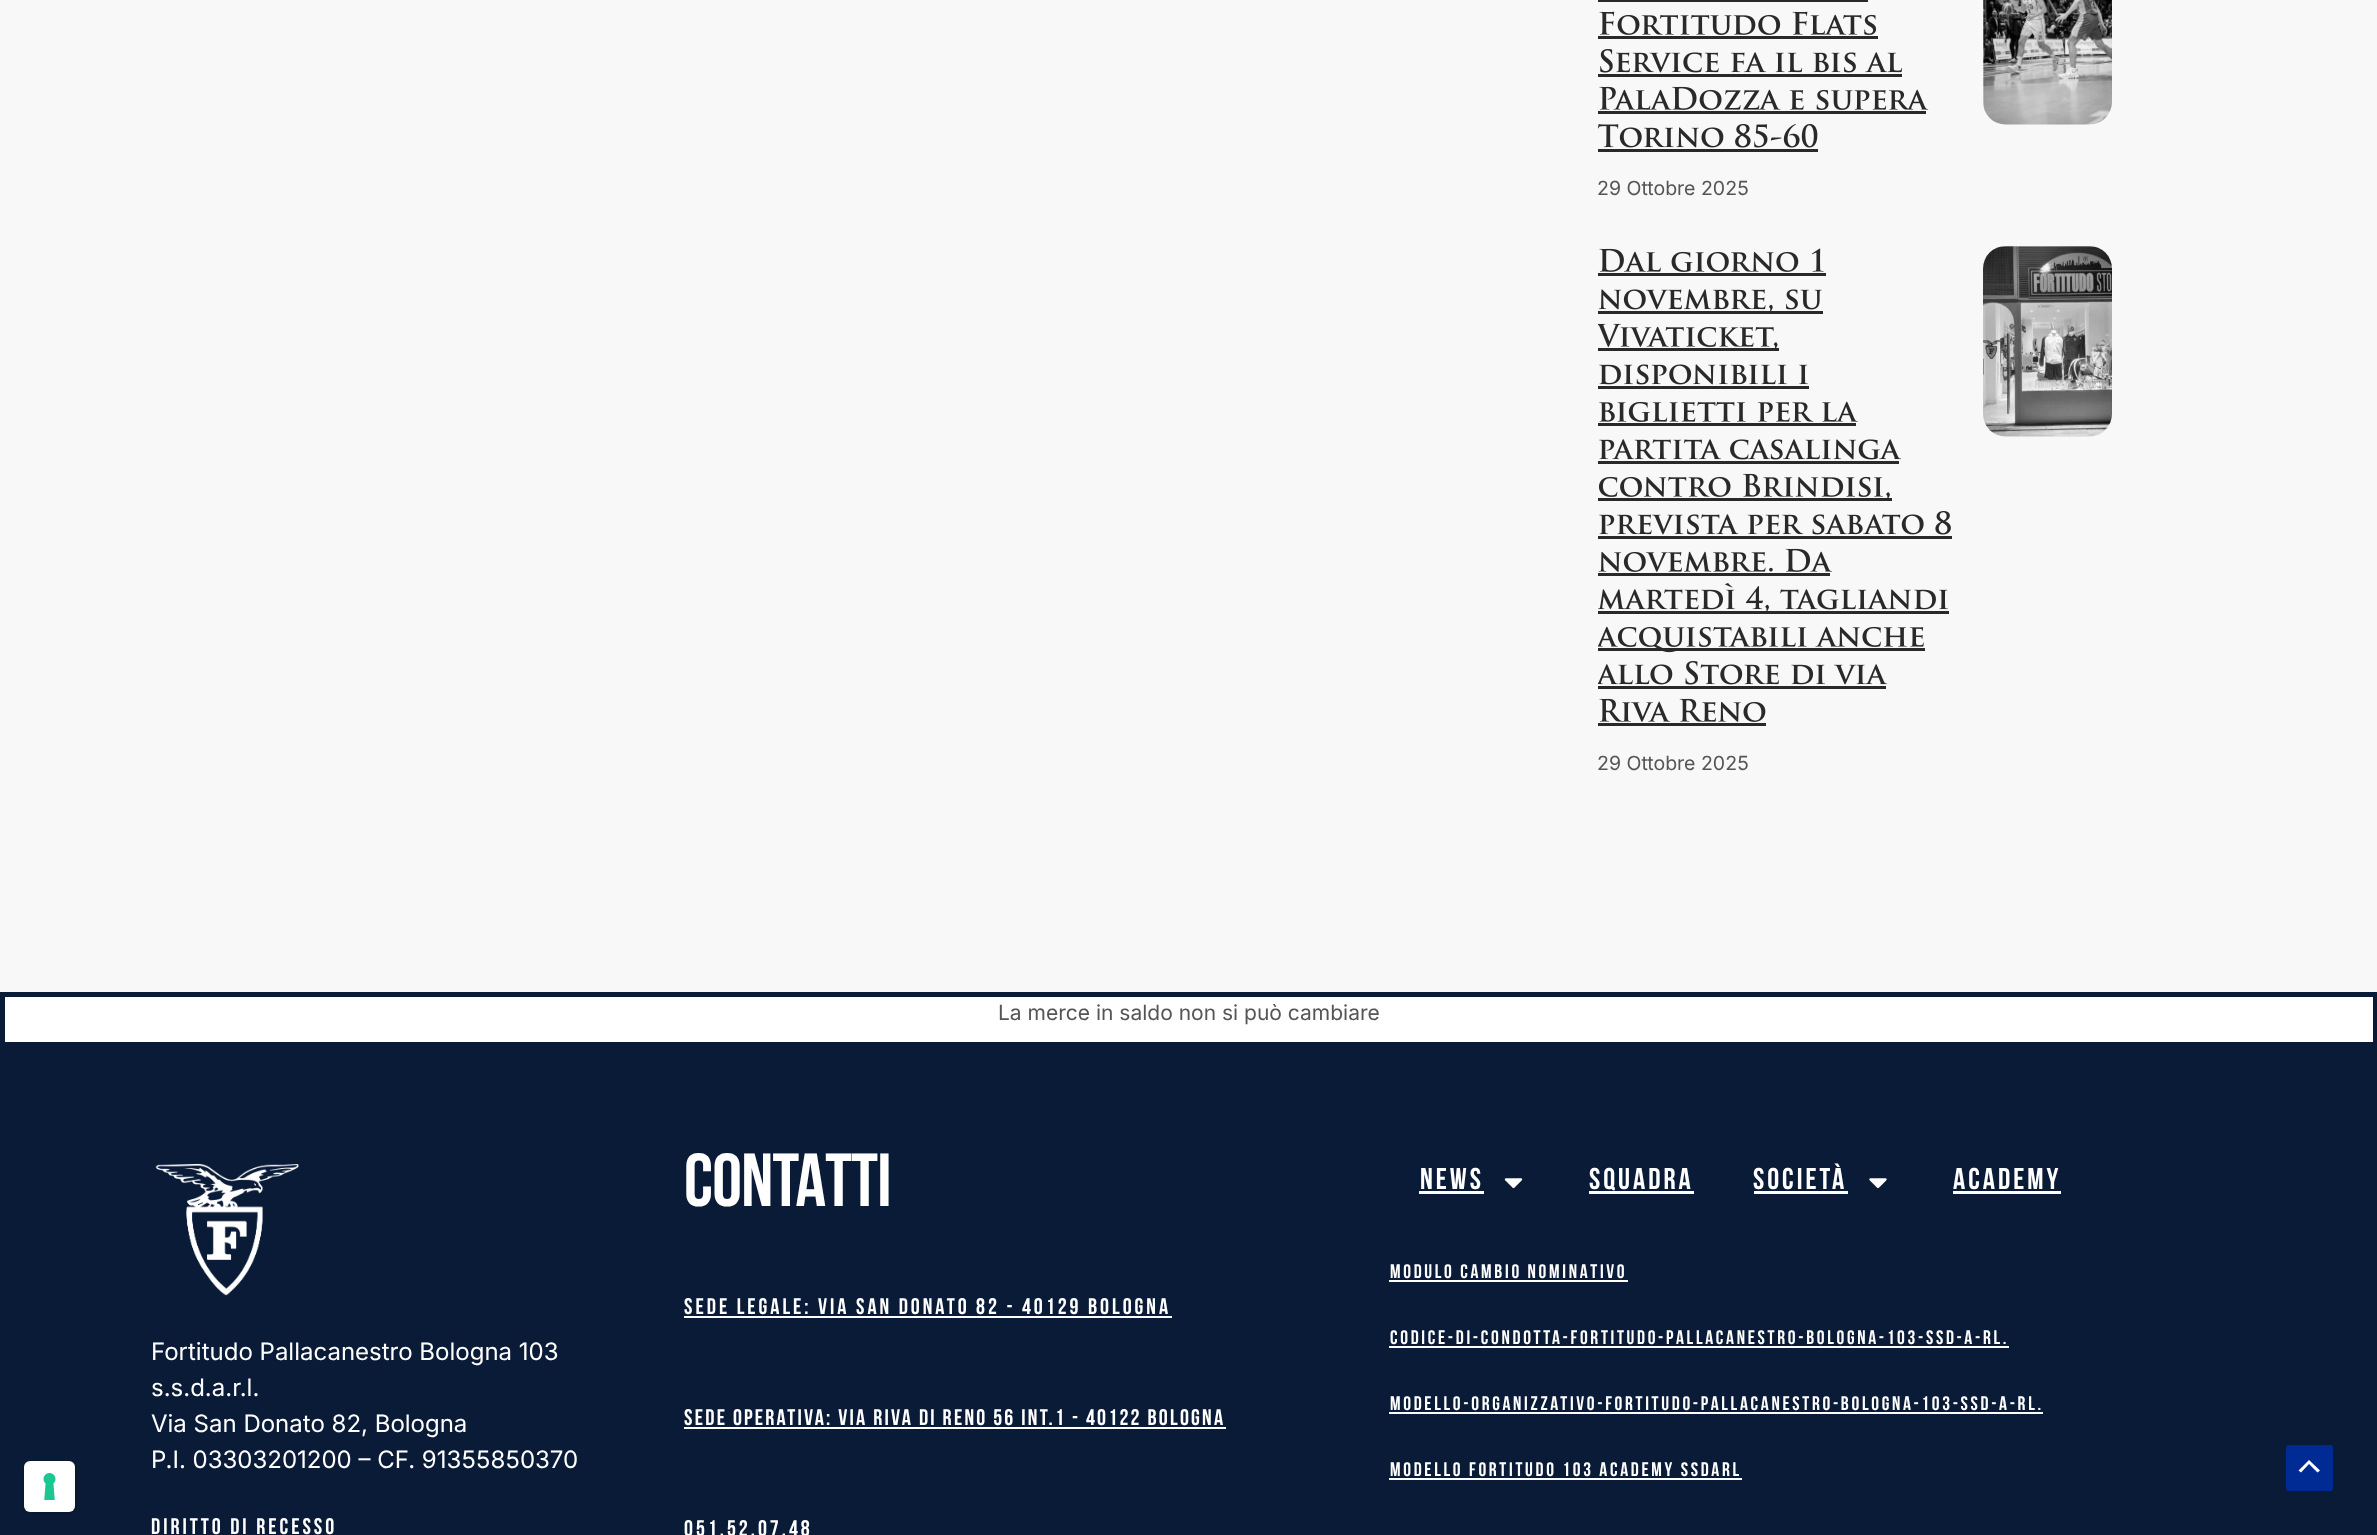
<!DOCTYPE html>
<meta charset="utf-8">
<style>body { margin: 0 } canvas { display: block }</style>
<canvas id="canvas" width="2377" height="1535"></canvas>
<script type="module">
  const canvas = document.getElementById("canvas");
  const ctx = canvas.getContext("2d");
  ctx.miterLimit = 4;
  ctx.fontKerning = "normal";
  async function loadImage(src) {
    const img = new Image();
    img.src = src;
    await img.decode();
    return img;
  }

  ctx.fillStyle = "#f8f8f8";
  ctx.fillRect(0, 0, 2377, 1535);
  ctx.fillStyle = "#0a1b37";
  ctx.fillRect(0, 1047, 2377, 488);
  ctx.beginPath();
  ctx.roundRect(24, 1461, 52, 52, 7);
  ctx.strokeStyle = "#09172f";
  ctx.lineWidth = 2;
  ctx.stroke();
  ctx.fillStyle = "#ffffff";
  ctx.beginPath();
  ctx.roundRect(24, 1461, 51, 51, 6);
  ctx.fill();
  ctx.drawImage(await loadImage("img1.png"), 43, 1473, 13, 27);
  ctx.drawImage(await loadImage("img2.png"), 1983, 0, 129, 125);
  ctx.fillStyle = "#292929";
  ctx.fillRect(1598, 0, 270, 2);
  ctx.drawImage(await loadImage("img3.png"), 1599, 11, 278, 24);
  ctx.fillRect(1598, 36, 280, 3);
  ctx.drawImage(await loadImage("img4.png"), 1600, 49, 303, 24);
  ctx.fillRect(1598, 74, 304, 3);
  ctx.drawImage(await loadImage("img5.png"), 1599, 86, 330, 24);
  ctx.fillRect(1598, 111, 328, 3);
  ctx.drawImage(await loadImage("img6.png"), 1598, 124, 220, 24);
  ctx.fillRect(1598, 149, 220, 3);
  ctx.font = "19.5px Inter";
  ctx.fillStyle = "#555555";
  ctx.fillText("29 Ottobre 2025", 1597, 195);
  ctx.drawImage(await loadImage("img7.png"), 1983, 246, 129, 191);
  ctx.drawImage(await loadImage("img8.png"), 1599, 248, 225, 24);
  ctx.fillStyle = "#292929";
  ctx.fillRect(1598, 273, 228, 3);
  ctx.drawImage(await loadImage("img9.png"), 1598, 289, 224, 22);
  ctx.fillRect(1598, 311, 225, 3);
  ctx.drawImage(await loadImage("img10.png"), 1598, 323, 180, 25);
  ctx.fillRect(1598, 348, 181, 3);
  ctx.drawImage(await loadImage("img11.png"), 1599, 364, 209, 21);
  ctx.fillRect(1598, 386, 211, 3);
  ctx.drawImage(await loadImage("img12.png"), 1599, 401, 259, 21);
  ctx.fillRect(1598, 423, 258, 3);
  ctx.drawImage(await loadImage("img13.png"), 1599, 439, 303, 21);
  ctx.fillRect(1598, 461, 301, 3);
  ctx.drawImage(await loadImage("img14.png"), 1598, 473, 292, 25);
  ctx.fillRect(1598, 498, 294, 3);
  ctx.drawImage(await loadImage("img15.png"), 1599, 511, 352, 24);
  ctx.fillRect(1598, 536, 354, 3);
  ctx.drawImage(await loadImage("img16.png"), 1598, 548, 235, 24);
  ctx.fillRect(1598, 573, 232, 3);
  ctx.drawImage(await loadImage("img17.png"), 1598, 583, 350, 28);
  ctx.fillRect(1598, 611, 351, 3);
  ctx.fillRect(1598, 648, 327, 3);
  ctx.drawImage(await loadImage("img18.png"), 1598, 626, 326, 27);
  ctx.drawImage(await loadImage("img19.png"), 1598, 661, 290, 24);
  ctx.fillRect(1598, 686, 288, 3);
  ctx.drawImage(await loadImage("img20.png"), 1599, 698, 167, 24);
  ctx.fillRect(1598, 723, 168, 3);
  ctx.fillStyle = "#555555";
  ctx.fillText("29 Ottobre 2025", 1597, 770);
  ctx.fillStyle = "#ffffff";
  ctx.beginPath();
  ctx.rect(2.5, 994.5, 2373, 50);
  ctx.fill();
  ctx.strokeStyle = "#0a1b37";
  ctx.lineWidth = 5;
  ctx.stroke();
  ctx.font = "21px Inter";
  ctx.fillStyle = "#555555";
  ctx.fillText("La merce in saldo non si può cambiare", 998, 1020);
  ctx.drawImage(await loadImage("img21.png"), 155, 1163, 144, 133);
  ctx.font = "24px Inter";
  ctx.fillStyle = "#ffffff";
  ctx.fillText("Fortitudo Pallacanestro Bologna 103", 151, 1360);
  ctx.fillText("s.s.d.a.r.l.", 151, 1396);
  ctx.fillText("Via San Donato 82, Bologna", 151, 1432);
  ctx.fillText("P.I. 03303201200 – CF. 91355850370", 151, 1468);
  ctx.letterSpacing = "3px";
  ctx.font = "bold 22.5px Bebas Neue";
  ctx.fillText("Diritto di recesso", 151, 1534);
  ctx.letterSpacing = "-0.75px";
  ctx.font = "bold 75px Bebas Neue";
  ctx.fillText("CONTATTI", 684, 1206);
  ctx.letterSpacing = "3px";
  ctx.font = "bold 22.5px Bebas Neue";
  ctx.fillText("Sede legale: Via San Donato 82 - 40129 BOLOGNA", 684, 1314);
  ctx.fillRect(684, 1316, 488, 2);
  ctx.letterSpacing = "2.25px";
  ctx.fillText("Sede operativa: Via Riva di Reno 56 int.1 - 40122 BOLOGNA", 684, 1425);
  ctx.fillRect(684, 1427, 542, 2);
  ctx.letterSpacing = "3px";
  ctx.fillText("051.52.07.48", 684, 1536);
  ctx.font = "bold 30px Bebas Neue";
  ctx.fillText("News", 1420, 1189);
  ctx.fillRect(1419, 1191, 65, 3);
  ctx.drawImage(await loadImage("img22.png"), 1504, 1178, 19, 11);
  ctx.fillText("Squadra", 1589, 1189);
  ctx.fillRect(1589, 1191, 105, 3);
  ctx.fillText("Società", 1753, 1189);
  ctx.fillRect(1754, 1191, 94, 3);
  ctx.drawImage(await loadImage("img23.png"), 1869, 1178, 18, 11);
  ctx.fillText("Academy", 1953, 1189);
  ctx.fillRect(1953, 1191, 108, 3);
  ctx.letterSpacing = "2.7px";
  ctx.font = "bold 19.5px Bebas Neue";
  ctx.fillText("MODULO CAMBIO NOMINATIVO", 1390, 1278);
  ctx.fillRect(1389, 1280, 239, 2);
  ctx.fillText("Codice-di-Condotta-Fortitudo-Pallacanestro-Bologna-103-SSD-A-RL.", 1390, 1344);
  ctx.fillRect(1389, 1346, 620, 2);
  ctx.fillText("Modello-Organizzativo-Fortitudo-Pallacanestro-Bologna-103-SSD-A-RL.", 1390, 1410);
  ctx.fillRect(1389, 1412, 654, 2);
  ctx.fillText("MODELLO FORTITUDO 103 ACADEMY SSDARL", 1390, 1476);
  ctx.fillRect(1389, 1478, 353, 2);
  ctx.fillStyle = "#002b95";
  ctx.beginPath();
  ctx.roundRect(2286, 1445, 47, 46, 3);
  ctx.fill();
  ctx.fillStyle = "#ffffff";
  ctx.beginPath();
  ctx.moveTo(2320, 1470.5);
  ctx.lineTo(2309, 1460);
  ctx.lineTo(2298.5, 1470.5);
  ctx.lineTo(2301, 1472.5);
  ctx.lineTo(2309, 1464);
  ctx.lineTo(2317.5, 1472.5);
  ctx.closePath();
  ctx.fill();
</script>
